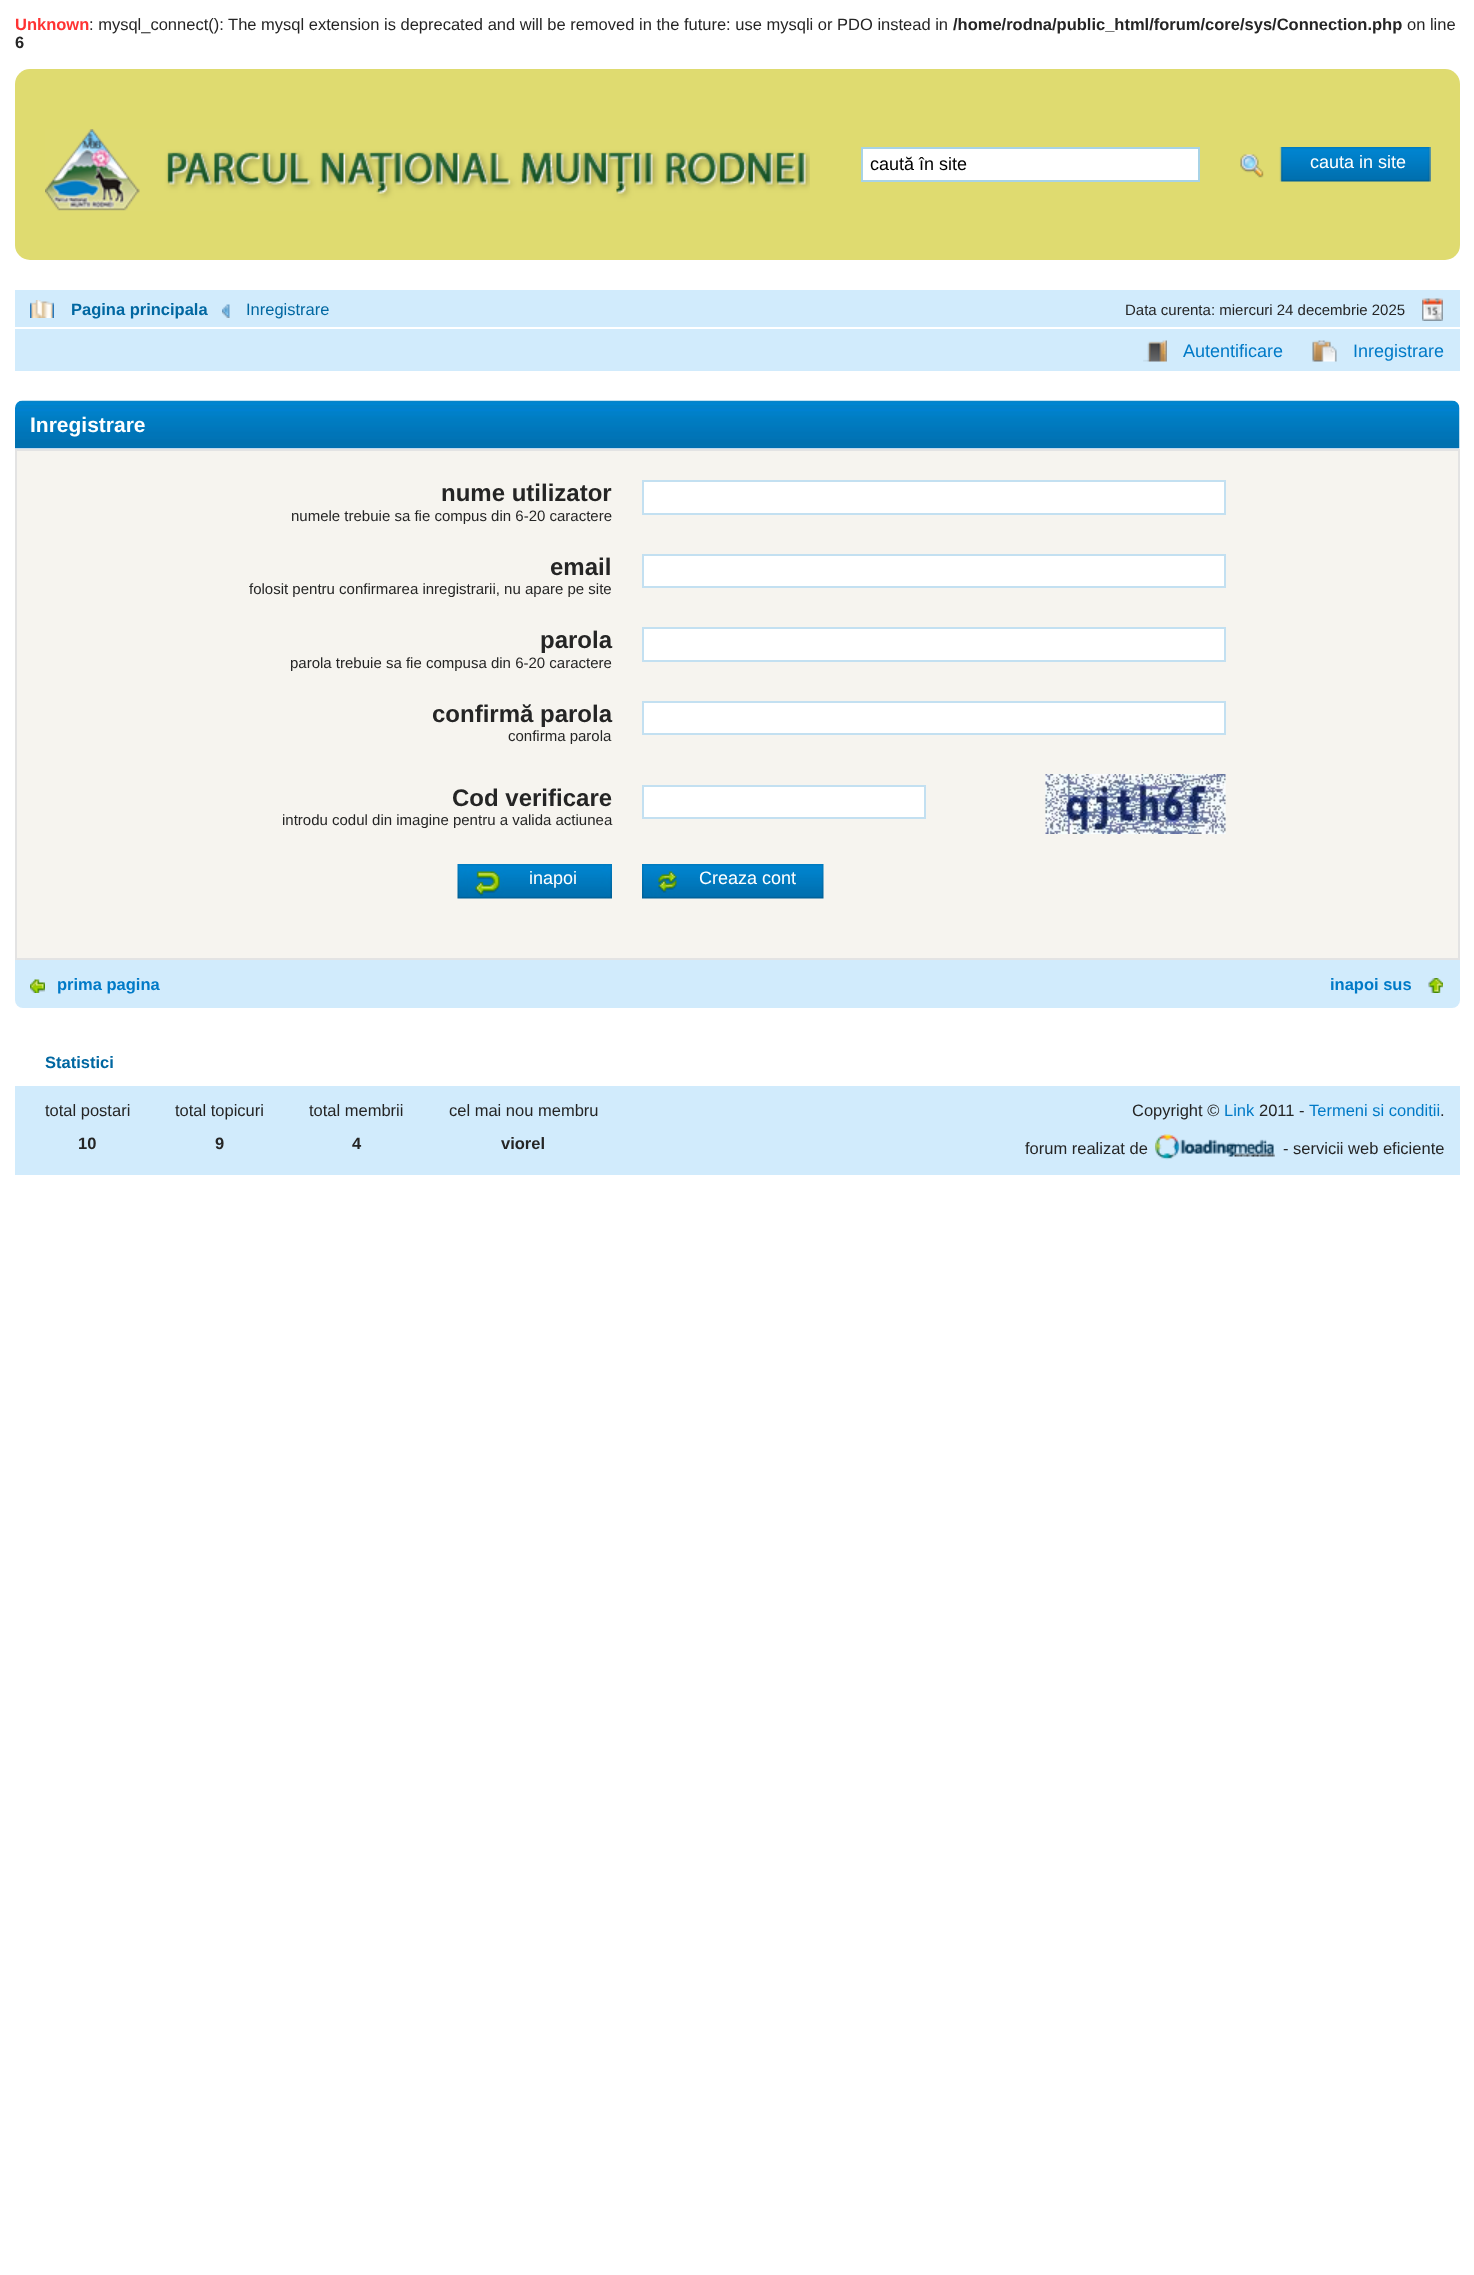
<!DOCTYPE html>
<meta charset="utf-8">
<style>body { margin: 0 } canvas { display: block }</style>
<canvas id="canvas" width="1474" height="2275"></canvas>
<script type="module">
  const canvas = document.getElementById("canvas");
  const ctx = canvas.getContext("2d");
  ctx.miterLimit = 4;
  ctx.fontKerning = "normal";
  async function loadImage(src) {
    const img = new Image();
    img.src = src;
    await img.decode();
    return img;
  }

  ctx.fillStyle = "#ffffff";
  ctx.fillRect(0, 0, 1474, 2275);
  ctx.font = "bold 16.5px Liberation Sans";
  ctx.fillStyle = "#ff3333";
  ctx.fillText("Unknown", 15, 30);
  ctx.font = "16.5px Liberation Sans";
  ctx.fillStyle = "#252525";
  ctx.fillText(": mysql_connect(): The mysql extension is deprecated and will be removed in the future: use mysqli or PDO instead in", 89, 30);
  ctx.font = "bold 16.5px Liberation Sans";
  ctx.fillText("/home/rodna/public_html/forum/core/sys/Connection.php", 953, 30);
  ctx.font = "16.5px Liberation Sans";
  ctx.fillText("on line", 1407, 30);
  ctx.font = "bold 16.5px Liberation Sans";
  ctx.fillText("6", 15, 48);
  ctx.fillStyle = "#dfdb70";
  ctx.beginPath();
  ctx.roundRect(15, 69, 1445, 191, 15);
  ctx.fill();
  ctx.drawImage(await loadImage("img1.png"), 45, 129, 765, 82);
  ctx.fillStyle = "#ffffff";
  ctx.beginPath();
  ctx.rect(862, 148, 337, 33);
  ctx.fill();
  ctx.strokeStyle = "#a8d3e6";
  ctx.lineWidth = 2;
  ctx.stroke();
  ctx.font = "18px Liberation Sans";
  ctx.fillStyle = "#000000";
  ctx.fillText("caută în site", 870, 170);
  ctx.drawImage(await loadImage("img2.png"), 1240, 147, 191, 35);
  ctx.fillStyle = "#ffffff";
  ctx.fillText("cauta in site", 1310, 168);
  ctx.fillStyle = "#d1ebfc";
  ctx.fillRect(15, 290, 1445, 37);
  ctx.drawImage(await loadImage("img3.png"), 30, 300, 24, 18);
  ctx.font = "bold 16.5px Liberation Sans";
  ctx.fillStyle = "#0067a1";
  ctx.fillText("Pagina principala", 71, 315);
  ctx.drawImage(await loadImage("img4.png"), 222, 304, 8, 14);
  ctx.font = "16.5px Liberation Sans";
  ctx.fillText("Inregistrare", 246, 315);
  ctx.drawImage(await loadImage("img5.png"), 1422, 298, 21, 23);
  ctx.font = "15px Liberation Sans";
  ctx.fillStyle = "#252525";
  ctx.fillText("Data curenta: miercuri 24 decembrie 2025", 1125, 315);
  ctx.fillStyle = "#d1ebfc";
  ctx.fillRect(15, 329, 1445, 42);
  ctx.drawImage(await loadImage("img6.png"), 1143, 340, 24, 22);
  ctx.font = "18px Liberation Sans";
  ctx.fillStyle = "#007ac7";
  ctx.fillText("Autentificare", 1183, 357);
  ctx.drawImage(await loadImage("img7.png"), 1312, 340, 25, 22);
  ctx.fillText("Inregistrare", 1353, 357);
  ctx.drawImage(await loadImage("img8.png"), 15, 400, 1445, 49);
  ctx.font = "bold 21px Liberation Sans";
  ctx.fillStyle = "#ffffff";
  ctx.fillText("Inregistrare", 30, 432);
  ctx.fillStyle = "#f6f4ef";
  ctx.beginPath();
  ctx.rect(16, 450, 1443, 509);
  ctx.fill();
  ctx.strokeStyle = "#e3e3e3";
  ctx.stroke();
  ctx.font = "bold 24px Liberation Sans";
  ctx.fillStyle = "#252525";
  ctx.fillText("nume utilizator", 441, 501);
  ctx.font = "15px Liberation Sans";
  ctx.fillText("numele trebuie sa fie compus din 6-20 caractere", 291, 521);
  ctx.fillStyle = "#ffffff";
  ctx.beginPath();
  ctx.rect(643, 481, 582, 33);
  ctx.fill();
  ctx.strokeStyle = "#c3e0f1";
  ctx.stroke();
  ctx.font = "bold 24px Liberation Sans";
  ctx.fillStyle = "#252525";
  ctx.fillText("email", 550, 575);
  ctx.font = "15px Liberation Sans";
  ctx.fillText("folosit pentru confirmarea inregistrarii, nu apare pe site", 249, 594);
  ctx.fillStyle = "#ffffff";
  ctx.beginPath();
  ctx.rect(643, 555, 582, 32);
  ctx.fill();
  ctx.stroke();
  ctx.font = "bold 24px Liberation Sans";
  ctx.fillStyle = "#252525";
  ctx.fillText("parola", 540, 648);
  ctx.font = "15px Liberation Sans";
  ctx.fillText("parola trebuie sa fie compusa din 6-20 caractere", 290, 668);
  ctx.fillStyle = "#ffffff";
  ctx.beginPath();
  ctx.rect(643, 628, 582, 33);
  ctx.fill();
  ctx.stroke();
  ctx.font = "bold 24px Liberation Sans";
  ctx.fillStyle = "#252525";
  ctx.fillText("confirmă parola", 432, 722);
  ctx.font = "15px Liberation Sans";
  ctx.fillText("confirma parola", 508, 741);
  ctx.fillStyle = "#ffffff";
  ctx.beginPath();
  ctx.rect(643, 702, 582, 32);
  ctx.fill();
  ctx.stroke();
  ctx.font = "bold 24px Liberation Sans";
  ctx.fillStyle = "#252525";
  ctx.fillText("Cod verificare", 452, 806);
  ctx.font = "15px Liberation Sans";
  ctx.fillText("introdu codul din imagine pentru a valida actiunea", 282, 825);
  ctx.fillStyle = "#ffffff";
  ctx.beginPath();
  ctx.rect(643, 786, 282, 32);
  ctx.fill();
  ctx.stroke();
  ctx.drawImage(await loadImage("img9.png"), 1045, 774, 181, 60);
  ctx.drawImage(await loadImage("img10.png"), 457, 864, 155, 35);
  ctx.font = "18px Liberation Sans";
  ctx.fillText("inapoi", 529, 884);
  ctx.drawImage(await loadImage("img11.png"), 642, 864, 182, 35);
  ctx.fillText("Creaza cont", 699, 884);
  ctx.fillStyle = "#d1ebfc";
  ctx.beginPath();
  ctx.roundRect(15, 960, 1445, 48, [0, 0, 8, 8]);
  ctx.fill();
  ctx.drawImage(await loadImage("img12.png"), 30, 979, 15, 14);
  ctx.font = "bold 16.5px Liberation Sans";
  ctx.fillStyle = "#007ac7";
  ctx.fillText("prima pagina", 57, 990);
  ctx.fillText("inapoi sus", 1330, 990);
  ctx.drawImage(await loadImage("img13.png"), 1428, 978, 15, 15);
  ctx.fillStyle = "#0067a1";
  ctx.fillText("Statistici", 45, 1068);
  ctx.fillStyle = "#d1ebfc";
  ctx.fillRect(15, 1086, 1445, 89);
  ctx.font = "16.5px Liberation Sans";
  ctx.fillStyle = "#252525";
  ctx.fillText("total postari", 45, 1116);
  ctx.font = "bold 16.5px Liberation Sans";
  ctx.fillText("10", 78, 1149);
  ctx.font = "16.5px Liberation Sans";
  ctx.fillText("total topicuri", 175, 1116);
  ctx.font = "bold 16.5px Liberation Sans";
  ctx.fillText("9", 215, 1149);
  ctx.font = "16.5px Liberation Sans";
  ctx.fillText("total membrii", 309, 1116);
  ctx.font = "bold 16.5px Liberation Sans";
  ctx.fillText("4", 352, 1149);
  ctx.font = "16.5px Liberation Sans";
  ctx.fillText("cel mai nou membru", 449, 1116);
  ctx.font = "bold 16.5px Liberation Sans";
  ctx.fillText("viorel", 501, 1149);
  ctx.font = "16.5px Liberation Sans";
  ctx.fillText("Copyright ©", 1132, 1116);
  ctx.fillStyle = "#007ac7";
  ctx.fillText("Link", 1224, 1116);
  ctx.fillStyle = "#252525";
  ctx.fillText("2011 -", 1259, 1116);
  ctx.fillStyle = "#007ac7";
  ctx.fillText("Termeni si conditii", 1309, 1116);
  ctx.fillStyle = "#252525";
  ctx.fillText(".", 1440, 1116);
  ctx.fillText("forum realizat de", 1025, 1154);
  ctx.drawImage(await loadImage("img14.png"), 1155, 1134, 120, 26);
  ctx.fillText("- servicii web eficiente", 1283, 1154);
</script>
